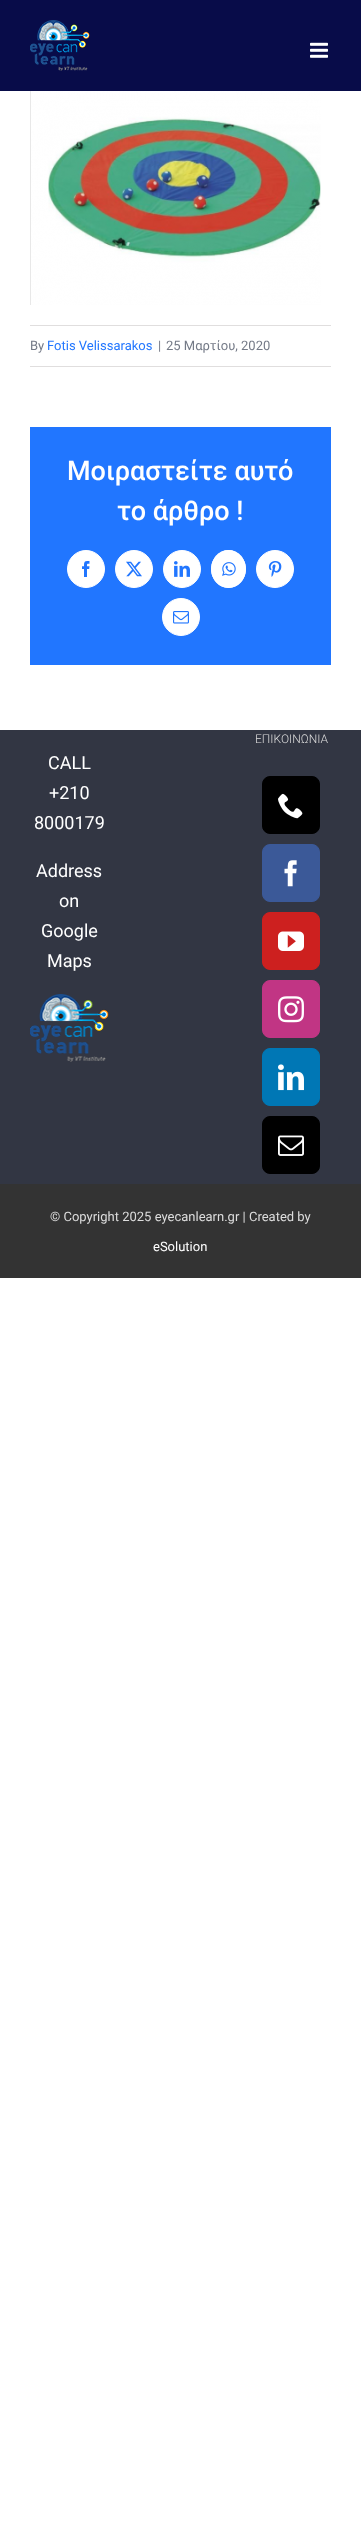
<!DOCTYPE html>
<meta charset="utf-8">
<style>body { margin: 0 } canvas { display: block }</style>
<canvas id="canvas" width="361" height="2548"></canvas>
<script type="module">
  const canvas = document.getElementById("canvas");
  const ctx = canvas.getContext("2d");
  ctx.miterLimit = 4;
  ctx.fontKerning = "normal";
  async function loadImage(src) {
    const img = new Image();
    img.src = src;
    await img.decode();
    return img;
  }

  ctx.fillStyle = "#ffffff";
  ctx.fillRect(0, 0, 361, 2548);
  ctx.fillStyle = "#080c49";
  ctx.fillRect(0, 0, 361, 91);
  ctx.drawImage(await loadImage("img1.png"), 30, 20, 60, 51);
  ctx.drawImage(await loadImage("img2.png"), 310, 42, 18, 16);
  ctx.drawImage(await loadImage("img3.png"), 30, 91, 291, 214);
  ctx.fillStyle = "#e0dede";
  ctx.fillRect(30, 325, 301, 1);
  ctx.fillRect(30, 366, 301, 1);
  ctx.font = "13px Roboto";
  ctx.fillStyle = "#747a87";
  ctx.fillText("By", 30, 350);
  ctx.fillStyle = "#2176ff";
  ctx.fillText("Fotis Velissarakos", 47, 350);
  ctx.fillStyle = "#747a87";
  ctx.fillText("|", 158, 350);
  ctx.fillText("25 Μαρτίου, 2020", 166, 350);
  ctx.fillStyle = "#2176ff";
  ctx.fillRect(30, 427, 301, 238);
  ctx.font = "500 27px Roboto";
  ctx.fillStyle = "#ffffff";
  ctx.fillText("Μοιραστείτε αυτό", 67, 480);
  ctx.fillText("το άρθρο !", 117, 520);
  ctx.beginPath();
  ctx.arc(86, 569, 18.5, 0, Math.PI * 2);
  ctx.fill();
  ctx.strokeStyle = "#ffffff";
  ctx.stroke();
  ctx.drawImage(await loadImage("img4.png"), 82, 561, 8, 16);
  ctx.beginPath();
  ctx.arc(134, 569, 18.5, 0, Math.PI * 2);
  ctx.fill();
  ctx.stroke();
  ctx.drawImage(await loadImage("img5.png"), 126, 561, 16, 16);
  ctx.beginPath();
  ctx.arc(182, 569, 18.5, 0, Math.PI * 2);
  ctx.fill();
  ctx.stroke();
  ctx.drawImage(await loadImage("img6.png"), 174, 561, 16, 16);
  ctx.beginPath();
  ctx.ellipse(228.5, 569, 17.5, 19, 0, 0, Math.PI * 2);
  ctx.fill();
  ctx.beginPath();
  ctx.moveTo(228.5, 550.5);
  ctx.bezierCurveTo(238, 550.5, 245.5, 559, 245.5, 569);
  ctx.bezierCurveTo(245.5, 579, 238, 587.5, 228.5, 587.5);
  ctx.bezierCurveTo(219, 587.5, 211.5, 579, 211.5, 569);
  ctx.bezierCurveTo(211.5, 559, 219, 550.5, 228.5, 550.5);
  ctx.closePath();
  ctx.stroke();
  ctx.drawImage(await loadImage("img7.png"), 222, 562, 14, 14);
  ctx.beginPath();
  ctx.arc(275, 569, 18.5, 0, Math.PI * 2);
  ctx.fill();
  ctx.stroke();
  ctx.drawImage(await loadImage("img8.png"), 268, 561, 14, 16);
  ctx.beginPath();
  ctx.arc(181, 617, 18.5, 0, Math.PI * 2);
  ctx.fill();
  ctx.stroke();
  ctx.drawImage(await loadImage("img9.png"), 173, 611, 16, 13);
  ctx.fillStyle = "#323643";
  ctx.fillRect(0, 730, 361, 454);
  ctx.font = "300 12px Roboto";
  ctx.fillStyle = "#dddddd";
  ctx.fillText("ΕΠΙΚΟΙΝΩΝΙΑ", 255, 743);
  ctx.fillStyle = "#000000";
  ctx.beginPath();
  ctx.roundRect(262.5, 776.5, 57, 57, 7.5);
  ctx.fill();
  ctx.strokeStyle = "#000000";
  ctx.stroke();
  ctx.drawImage(await loadImage("img10.png"), 278, 793, 25, 26);
  ctx.fillStyle = "#3b5998";
  ctx.beginPath();
  ctx.roundRect(262.5, 844.5, 57, 57, 7.5);
  ctx.fill();
  ctx.strokeStyle = "#3b5998";
  ctx.stroke();
  ctx.drawImage(await loadImage("img11.png"), 284, 860, 13, 27);
  ctx.fillStyle = "#cd201f";
  ctx.beginPath();
  ctx.roundRect(262.5, 912.5, 57, 57, 7.5);
  ctx.fill();
  ctx.strokeStyle = "#cd201f";
  ctx.stroke();
  ctx.drawImage(await loadImage("img12.png"), 278, 931, 26, 20);
  ctx.fillStyle = "#c13584";
  ctx.beginPath();
  ctx.roundRect(262.5, 980.5, 57, 57, 7.5);
  ctx.fill();
  ctx.strokeStyle = "#c13584";
  ctx.stroke();
  ctx.drawImage(await loadImage("img13.png"), 278, 996, 26, 27);
  ctx.fillStyle = "#0077b5";
  ctx.beginPath();
  ctx.roundRect(262.5, 1048.5, 57, 57, 7.5);
  ctx.fill();
  ctx.strokeStyle = "#0077b5";
  ctx.stroke();
  ctx.drawImage(await loadImage("img14.png"), 278, 1064, 26, 27);
  ctx.fillStyle = "#000000";
  ctx.beginPath();
  ctx.roundRect(262.5, 1116.5, 57, 57, 7.5);
  ctx.fill();
  ctx.strokeStyle = "#000000";
  ctx.stroke();
  ctx.drawImage(await loadImage("img15.png"), 278, 1135, 26, 21);
  ctx.font = "18px Roboto";
  ctx.fillStyle = "#ffffff";
  ctx.fillText("CALL", 48, 769);
  ctx.fillText("+210", 49, 799);
  ctx.fillText("8000179", 34, 829);
  ctx.fillText("Address", 36, 877);
  ctx.fillText("on", 59, 907);
  ctx.fillText("Google", 41, 937);
  ctx.fillText("Maps", 47, 967);
  ctx.drawImage(await loadImage("img16.png"), 30, 994, 79, 68);
  ctx.fillStyle = "#333333";
  ctx.fillRect(0, 1184, 361, 94);
  ctx.font = "13px Roboto";
  ctx.fillStyle = "#dddddd";
  ctx.fillText("© Copyright 2025 eyecanlearn.gr | Created by", 50, 1221);
  ctx.fillStyle = "#ffffff";
  ctx.fillText("eSolution", 153, 1251);
</script>
